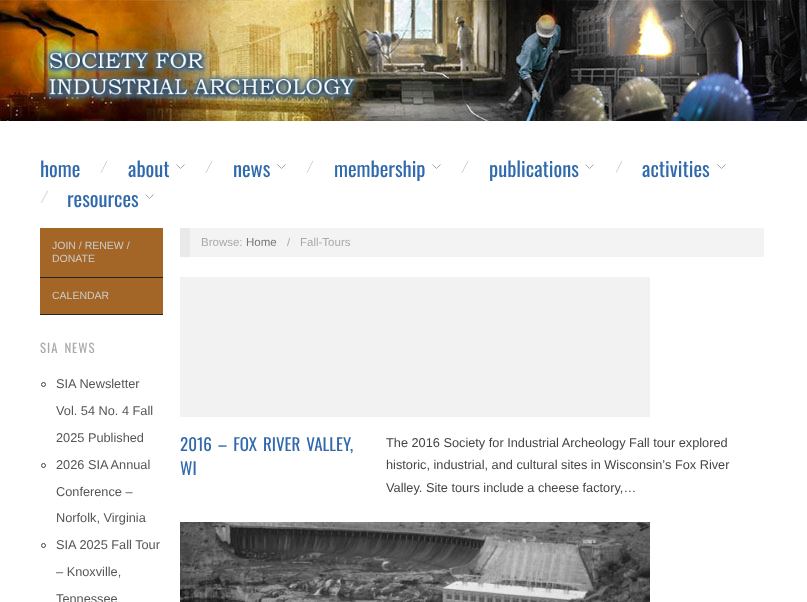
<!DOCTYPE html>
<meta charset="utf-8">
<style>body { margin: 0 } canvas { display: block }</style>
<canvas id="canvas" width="807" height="602"></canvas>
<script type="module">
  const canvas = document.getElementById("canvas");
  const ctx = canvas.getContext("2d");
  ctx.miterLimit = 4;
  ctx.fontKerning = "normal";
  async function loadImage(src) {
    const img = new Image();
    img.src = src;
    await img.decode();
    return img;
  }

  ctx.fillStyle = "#ffffff";
  ctx.fillRect(0, 0, 807, 602);
  ctx.drawImage(await loadImage("img1.png"), 0, 0, 807, 121);
  ctx.drawImage(await loadImage("img2.png"), 43, 46, 317, 57);
  ctx.font = "20.5px Oswald";
  ctx.fillStyle = "#306aad";
  ctx.fillText("home", 40, 177);
  ctx.drawImage(await loadImage("img3.png"), 100, 160, 8, 13);
  ctx.drawImage(await loadImage("img4.png"), 176, 164, 9, 5);
  ctx.fillText("about", 128, 177);
  ctx.drawImage(await loadImage("img3.png"), 205, 160, 8, 13);
  ctx.drawImage(await loadImage("img4.png"), 277, 164, 9, 5);
  ctx.fillText("news", 233, 177);
  ctx.drawImage(await loadImage("img3.png"), 306, 160, 8, 13);
  ctx.drawImage(await loadImage("img4.png"), 432, 164, 9, 5);
  ctx.fillText("membership", 334, 177);
  ctx.drawImage(await loadImage("img3.png"), 461, 160, 8, 13);
  ctx.drawImage(await loadImage("img4.png"), 585, 164, 9, 5);
  ctx.fillText("publications", 489, 177);
  ctx.drawImage(await loadImage("img3.png"), 615, 160, 8, 13);
  ctx.drawImage(await loadImage("img4.png"), 717, 164, 9, 5);
  ctx.fillText("activities", 642, 177);
  ctx.drawImage(await loadImage("img5.png"), 40, 190, 9, 13);
  ctx.drawImage(await loadImage("img4.png"), 145, 194, 9, 5);
  ctx.fillText("resources", 67, 207);
  ctx.fillStyle = "#a46626";
  ctx.fillRect(40, 228, 123, 49);
  ctx.fillStyle = "#252525";
  ctx.fillRect(40, 277, 123, 1);
  ctx.font = "10.5px Liberation Sans";
  ctx.fillStyle = "#cccccc";
  ctx.fillText("JOIN / RENEW /", 52, 249);
  ctx.fillText("DONATE", 52, 262);
  ctx.fillStyle = "#a46626";
  ctx.fillRect(40, 278, 123, 36);
  ctx.fillStyle = "#252525";
  ctx.fillRect(40, 314, 123, 1);
  ctx.fillStyle = "#cccccc";
  ctx.fillText("CALENDAR", 52, 299);
  ctx.letterSpacing = "1px";
  ctx.wordSpacing = "2px";
  ctx.font = "12.75px Oswald";
  ctx.fillStyle = "#aaaaaa";
  ctx.fillText("SIA NEWS", 40, 353);
  ctx.beginPath();
  ctx.arc(43.5, 384.5, 2, 0, Math.PI * 2);
  ctx.strokeStyle = "#444444";
  ctx.stroke();
  ctx.letterSpacing = "0px";
  ctx.wordSpacing = "0px";
  ctx.font = "12.75px Liberation Sans";
  ctx.fillStyle = "#555555";
  ctx.fillText("SIA Newsletter", 56, 388);
  ctx.fillText("Vol. 54 No. 4 Fall", 56, 415);
  ctx.fillText("2025 Published", 56, 442);
  ctx.beginPath();
  ctx.arc(43.5, 465.5, 2, 0, Math.PI * 2);
  ctx.stroke();
  ctx.fillText("2026 SIA Annual", 56, 469);
  ctx.fillText("Conference –", 56, 496);
  ctx.fillText("Norfolk, Virginia", 56, 522);
  ctx.beginPath();
  ctx.arc(43.5, 545.5, 2, 0, Math.PI * 2);
  ctx.stroke();
  ctx.fillText("SIA 2025 Fall Tour", 56, 549);
  ctx.fillText("– Knoxville,", 56, 576);
  ctx.fillText("Tennessee", 56, 603);
  ctx.fillStyle = "#f3f3f3";
  ctx.fillRect(190, 228, 574, 29);
  ctx.fillStyle = "#e9e9e9";
  ctx.fillRect(180, 228, 10, 29);
  ctx.font = "11.5px Liberation Sans";
  ctx.fillStyle = "#aaaaaa";
  ctx.fillText("Browse:", 201, 246);
  ctx.fillStyle = "#777777";
  ctx.fillText("Home", 246, 246);
  ctx.fillStyle = "#aaaaaa";
  ctx.fillText("/", 287, 246);
  ctx.fillText("Fall-Tours", 300, 246);
  ctx.fillStyle = "#f2f2f2";
  ctx.fillRect(180, 277, 470, 140);
  ctx.wordSpacing = "2px";
  ctx.font = "17px Oswald";
  ctx.fillStyle = "#306aad";
  ctx.fillText("2016 – FOX RIVER VALLEY,", 180, 451);
  ctx.wordSpacing = "0px";
  ctx.fillText("WI", 180, 475);
  ctx.font = "12.75px Liberation Sans";
  ctx.fillStyle = "#444444";
  ctx.fillText("The 2016 Society for Industrial Archeology Fall tour explored", 386, 447);
  ctx.fillText("historic, industrial, and cultural sites in Wisconsin’s Fox River", 386, 469);
  ctx.fillText("Valley. Site tours include a cheese factory,…", 386, 492);
  ctx.drawImage(await loadImage("img6.png"), 180, 522, 470, 80);
</script>
